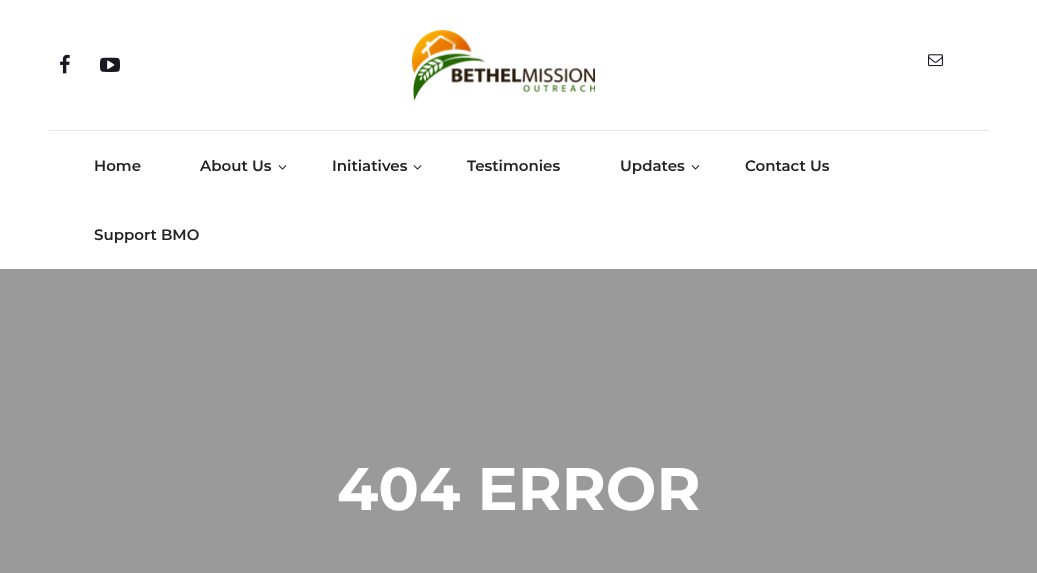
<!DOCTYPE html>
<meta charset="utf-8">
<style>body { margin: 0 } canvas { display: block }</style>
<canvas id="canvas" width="1037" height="573"></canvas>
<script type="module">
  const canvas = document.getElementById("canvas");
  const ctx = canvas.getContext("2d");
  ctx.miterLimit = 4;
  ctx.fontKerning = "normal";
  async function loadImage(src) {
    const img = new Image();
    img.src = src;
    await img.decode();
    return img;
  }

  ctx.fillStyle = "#ffffff";
  ctx.fillRect(0, 0, 1037, 573);
  ctx.drawImage(await loadImage("img1.png"), 60, 54, 10, 20);
  ctx.drawImage(await loadImage("img2.png"), 100, 57, 20, 15);
  ctx.drawImage(await loadImage("img3.png"), 412, 30, 183, 70);
  ctx.drawImage(await loadImage("img4.png"), 928, 54, 15, 13);
  ctx.fillStyle = "#e5e5e5";
  ctx.fillRect(49, 130, 940, 1);
  ctx.font = "600 15px Montserrat";
  ctx.fillStyle = "#232323";
  ctx.fillText("Home", 94, 171);
  ctx.fillText("About Us", 200, 171);
  ctx.drawImage(await loadImage("img5.png"), 278, 165, 9, 5);
  ctx.fillText("Initiatives", 332, 171);
  ctx.drawImage(await loadImage("img5.png"), 413, 165, 9, 5);
  ctx.fillText("Testimonies", 467, 171);
  ctx.fillText("Updates", 620, 171);
  ctx.drawImage(await loadImage("img5.png"), 691, 165, 9, 5);
  ctx.fillText("Contact Us", 745, 171);
  ctx.fillText("Support BMO", 94, 240);
  ctx.fillStyle = "#9a9a9a";
  ctx.fillRect(0, 269, 1037, 304);
  ctx.font = "bold 60px Montserrat";
  ctx.fillStyle = "#ffffff";
  ctx.fillText("404 ERROR", 337, 510);
</script>
